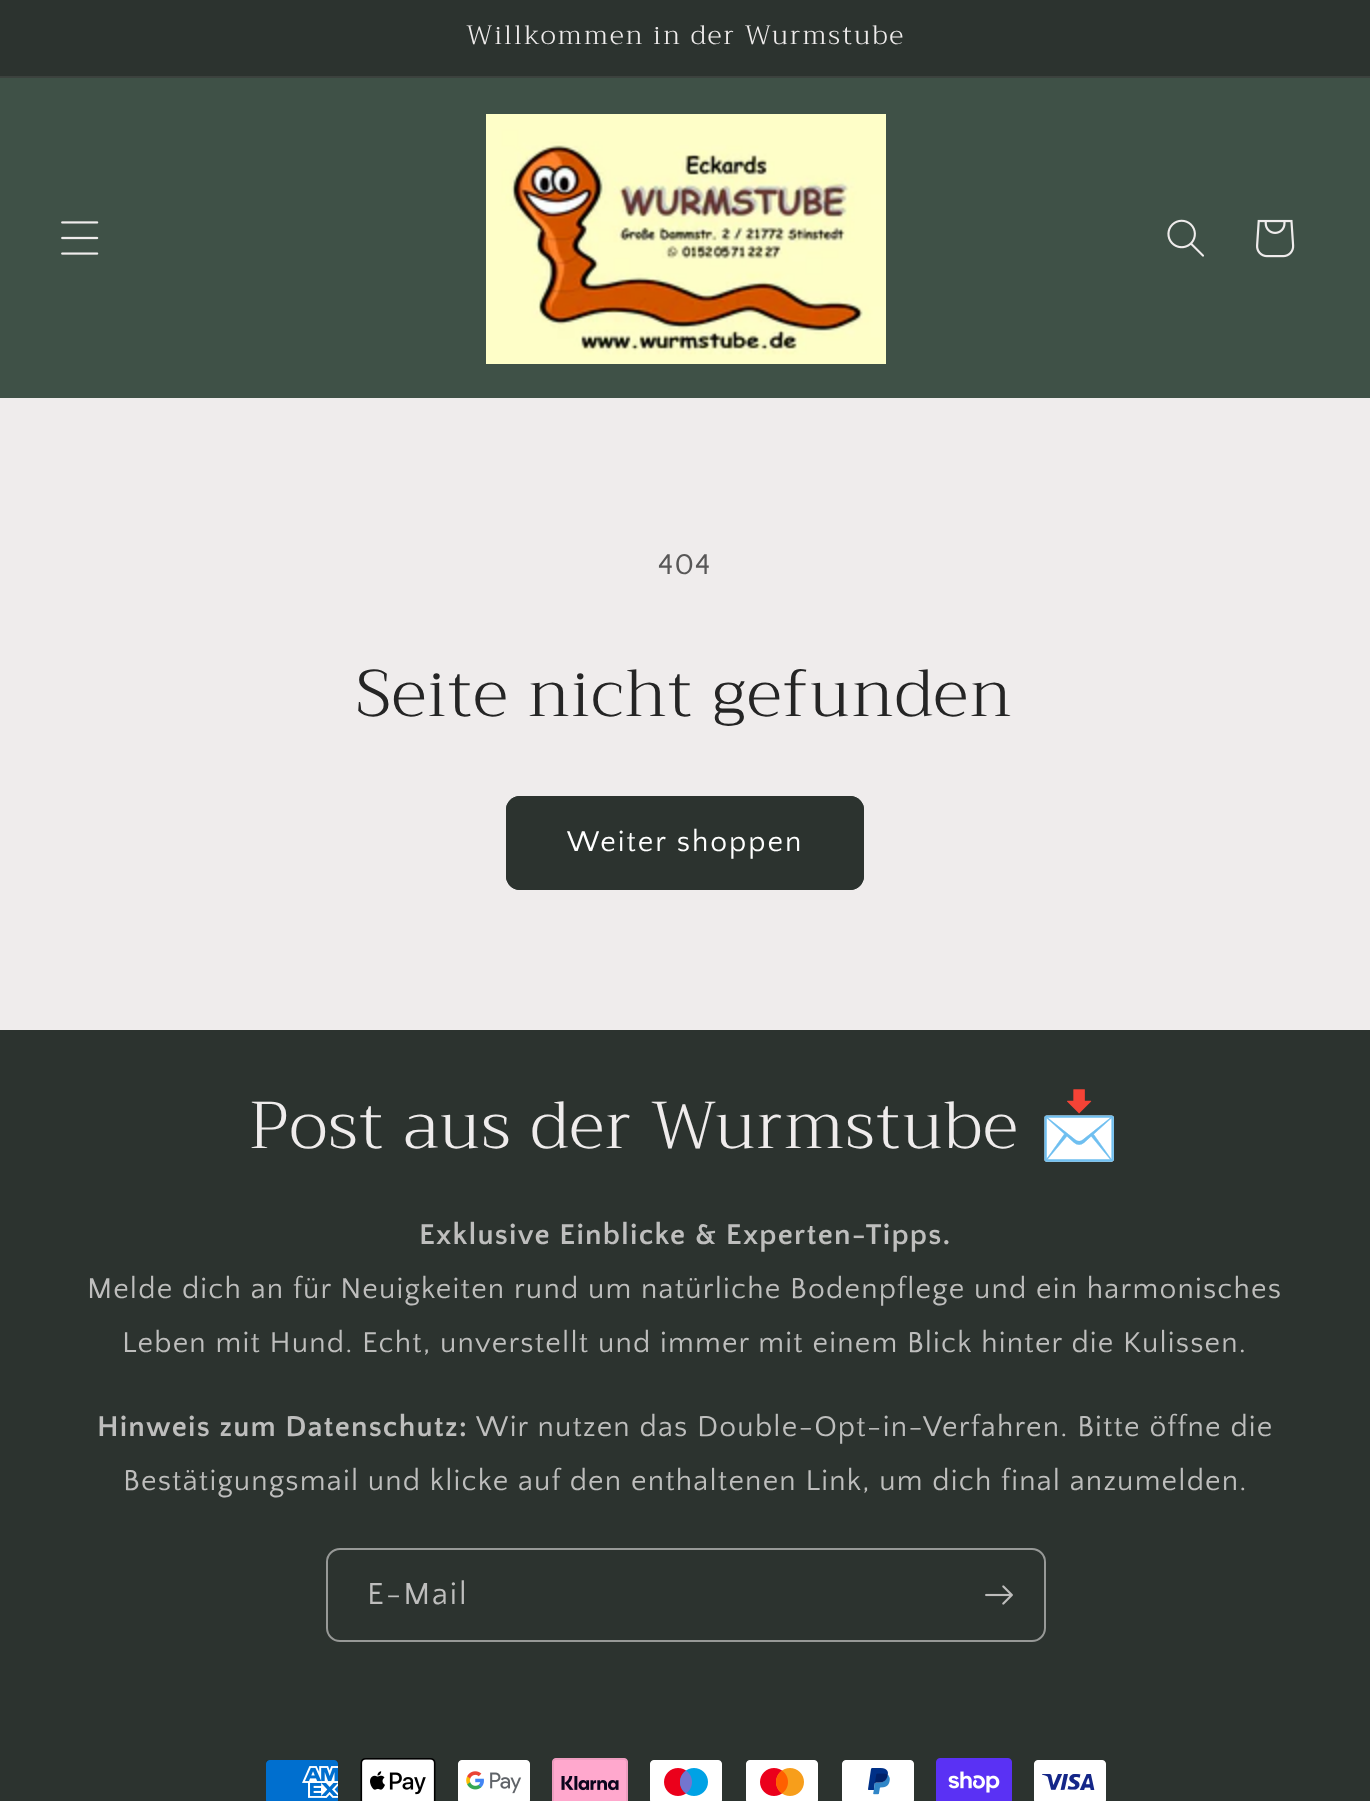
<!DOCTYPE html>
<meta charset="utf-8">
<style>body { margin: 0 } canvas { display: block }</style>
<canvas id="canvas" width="1370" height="1801"></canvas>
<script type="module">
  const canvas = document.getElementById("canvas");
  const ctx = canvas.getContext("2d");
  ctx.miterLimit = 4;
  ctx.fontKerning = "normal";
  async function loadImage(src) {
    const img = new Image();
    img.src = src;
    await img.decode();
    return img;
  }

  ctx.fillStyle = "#efecec";
  ctx.fillRect(0, 0, 1370, 1801);
  ctx.fillStyle = "#2c332f";
  ctx.fillRect(0, 0, 1370, 76);
  ctx.fillStyle = "#3c423e";
  ctx.fillRect(0, 76, 1370, 2);
  ctx.letterSpacing = "2px";
  ctx.font = "300 26.4px Trirong";
  ctx.fillStyle = "#efecec";
  ctx.fillText("Willkommen in der Wurmstube", 466, 44);
  ctx.fillStyle = "#3f5147";
  ctx.fillRect(0, 78, 1370, 320);
  ctx.drawImage(await loadImage("img1.png"), 61, 221, 38, 34);
  ctx.drawImage(await loadImage("img2.png"), 486, 114, 400, 250);
  ctx.drawImage(await loadImage("img3.png"), 1167, 219, 37, 38);
  ctx.drawImage(await loadImage("img4.png"), 1256, 219, 39, 39);
  ctx.letterSpacing = "1.2px";
  ctx.font = "30px Quattrocento Sans";
  ctx.fillStyle = "#585757";
  ctx.fillText("404", 658, 574);
  ctx.letterSpacing = "1.3px";
  ctx.font = "300 66px Trirong";
  ctx.fillStyle = "#252525";
  ctx.fillText("Seite nicht gefunden", 356, 716);
  ctx.fillStyle = "#2c332f";
  ctx.beginPath();
  ctx.roundRect(506, 796, 358, 94, 14);
  ctx.fill();
  ctx.beginPath();
  ctx.roundRect(507, 797, 356, 92, 13);
  ctx.strokeStyle = "#2c332f";
  ctx.lineWidth = 2;
  ctx.stroke();
  ctx.letterSpacing = "2px";
  ctx.font = "30px Quattrocento Sans";
  ctx.fillStyle = "#ffffff";
  ctx.fillText("Weiter shoppen", 567, 851);
  ctx.fillStyle = "#2c332f";
  ctx.fillRect(0, 1030, 1370, 771);
  ctx.drawImage(await loadImage("img5.png"), 266, 1760, 72, 41);
  ctx.drawImage(await loadImage("img6.png"), 360, 1758, 76, 43);
  ctx.drawImage(await loadImage("img7.png"), 458, 1760, 72, 41);
  ctx.drawImage(await loadImage("img8.png"), 552, 1758, 76, 43);
  ctx.drawImage(await loadImage("img9.png"), 650, 1760, 72, 41);
  ctx.drawImage(await loadImage("img10.png"), 746, 1760, 72, 41);
  ctx.drawImage(await loadImage("img11.png"), 842, 1760, 72, 41);
  ctx.drawImage(await loadImage("img12.png"), 936, 1758, 76, 43);
  ctx.drawImage(await loadImage("img13.png"), 1034, 1760, 72, 41);
  ctx.letterSpacing = "1.3px";
  ctx.font = "300 66px Trirong";
  ctx.fillStyle = "#efecec";
  ctx.fillText("Post aus der Wurmstube", 249, 1148);
  ctx.font = "66px Noto Color Emoji";
  ctx.fillText("📩", 1038, 1148);
  ctx.letterSpacing = "1.2px";
  ctx.font = "bold 30px Quattrocento Sans";
  ctx.fillStyle = "#bebebd";
  ctx.fillText("Exklusive Einblicke & Experten-Tipps.", 419, 1244);
  ctx.font = "30px Quattrocento Sans";
  ctx.fillText("Melde dich an für Neuigkeiten rund um natürliche Bodenpflege und ein harmonisches", 87, 1298);
  ctx.fillText("Leben mit Hund. Echt, unverstellt und immer mit einem Blick hinter die Kulissen.", 122, 1352);
  ctx.font = "bold 30px Quattrocento Sans";
  ctx.fillText("Hinweis zum Datenschutz:", 97, 1436);
  ctx.font = "30px Quattrocento Sans";
  ctx.fillText("Wir nutzen das Double-Opt-in-Verfahren. Bitte öffne die", 476, 1436);
  ctx.fillText("Bestätigungsmail und klicke auf den enthaltenen Link, um dich final anzumelden.", 123, 1490);
  ctx.beginPath();
  ctx.roundRect(327, 1549, 718, 92, 13);
  ctx.strokeStyle = "#979997";
  ctx.stroke();
  ctx.letterSpacing = "2px";
  ctx.font = "32px Quattrocento Sans";
  ctx.fillText("E-Mail", 367, 1604);
  ctx.drawImage(await loadImage("img14.png"), 985, 1585, 28, 20);
</script>
